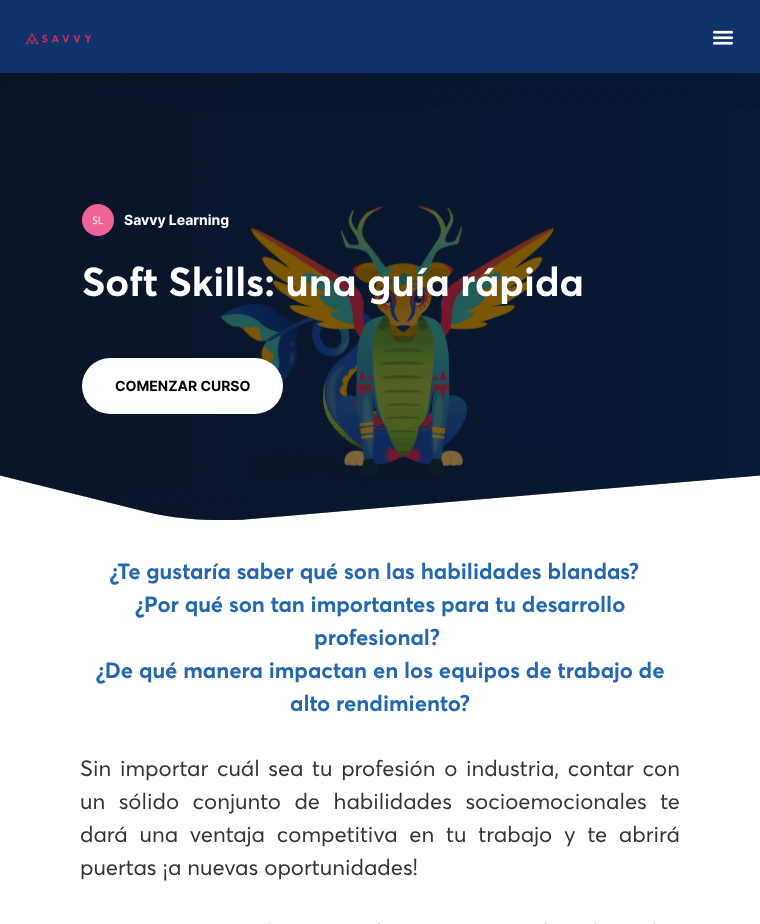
<!DOCTYPE html>
<meta charset="utf-8">
<style>body { margin: 0 } canvas { display: block }</style>
<canvas id="canvas" width="760" height="924"></canvas>
<script type="module">
  const canvas = document.getElementById("canvas");
  const ctx = canvas.getContext("2d");
  ctx.miterLimit = 4;
  ctx.fontKerning = "normal";
  async function loadImage(src) {
    const img = new Image();
    img.src = src;
    await img.decode();
    return img;
  }

  ctx.fillStyle = "#ffffff";
  ctx.fillRect(0, 0, 760, 924);
  ctx.drawImage(await loadImage("img3.png"), 0, 73, 760, 851);
  ctx.fillStyle = "rgba(0, 0, 0, 0.1)";
  ctx.filter = "blur(19px)";
  ctx.beginPath();
  ctx.rect(0, 0, 760, 73);
  ctx.fill();
  ctx.filter = "none";
  ctx.fillStyle = "#10336b";
  ctx.fillRect(0, 0, 760, 73);
  ctx.drawImage(await loadImage("img1.png"), 25, 33, 67, 12);
  ctx.drawImage(await loadImage("img2.png"), 712, 30, 22, 15);
</script>
